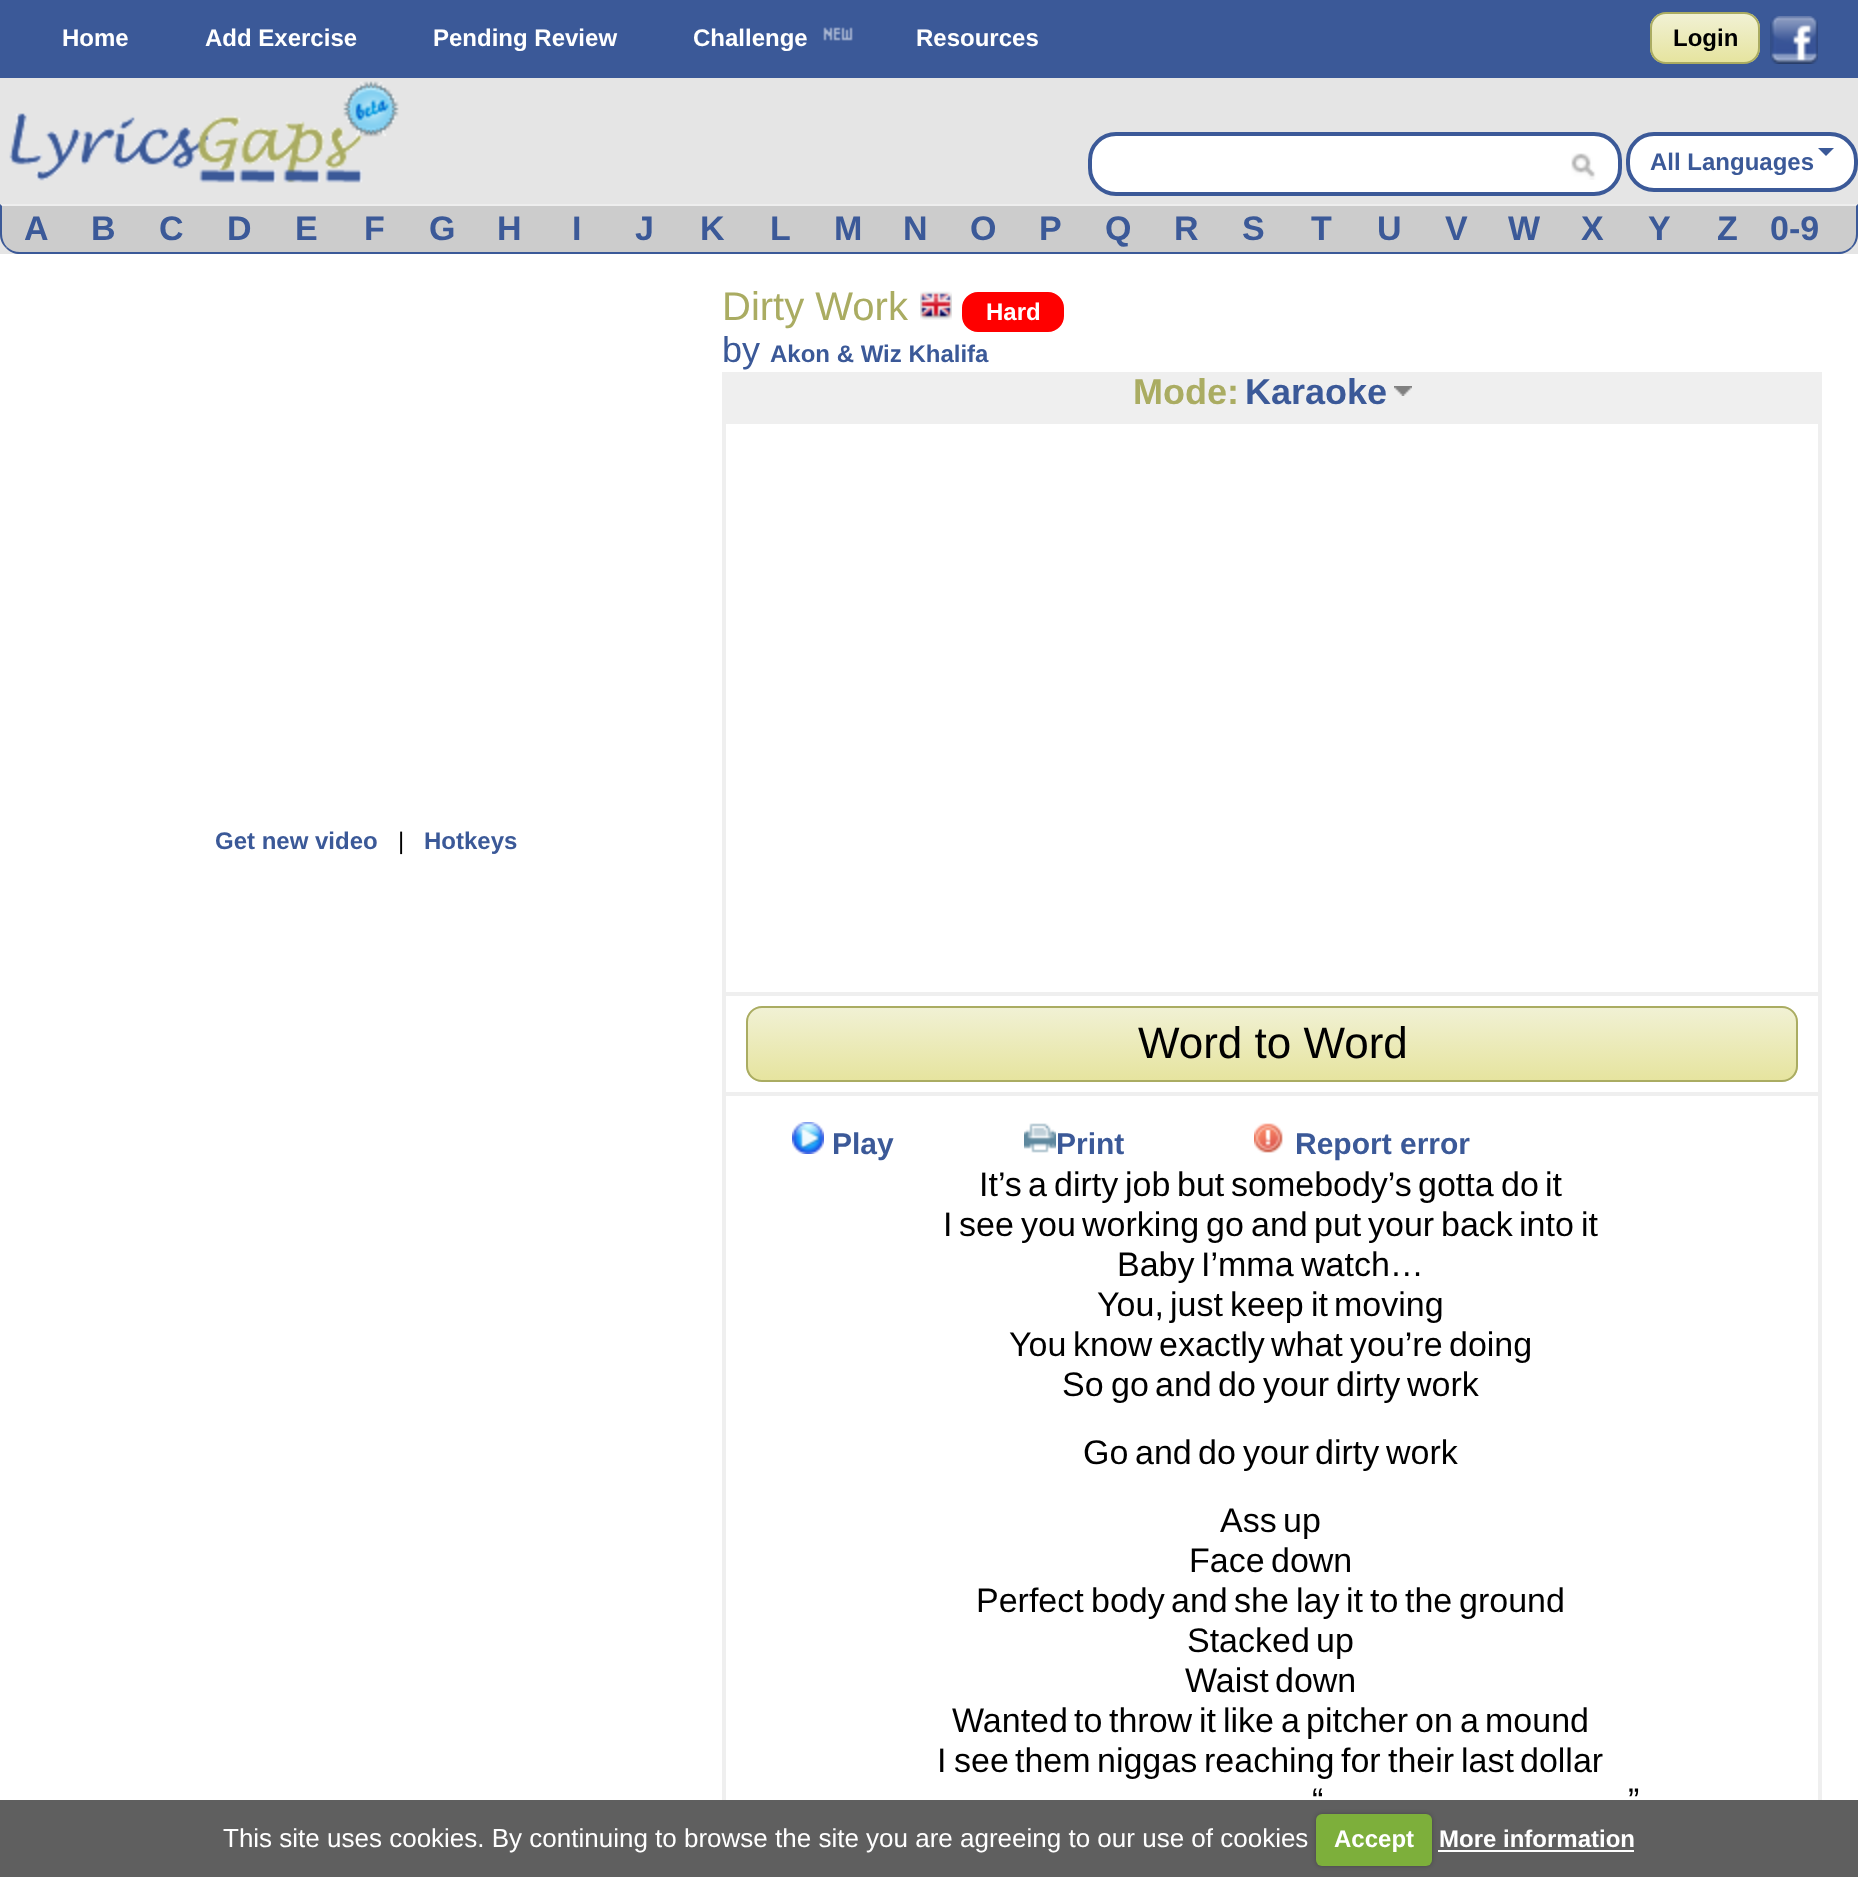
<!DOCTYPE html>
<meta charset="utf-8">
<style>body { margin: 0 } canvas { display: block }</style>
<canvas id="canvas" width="1858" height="1877"></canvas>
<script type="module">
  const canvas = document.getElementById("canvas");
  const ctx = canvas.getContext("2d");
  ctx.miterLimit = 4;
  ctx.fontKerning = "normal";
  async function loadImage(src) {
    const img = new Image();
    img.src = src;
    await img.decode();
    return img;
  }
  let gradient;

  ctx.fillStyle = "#e5e5e5";
  ctx.fillRect(0, 0, 1858, 1877);
  ctx.fillStyle = "#3b5998";
  ctx.fillRect(0, 0, 1858, 78);
  ctx.font = "bold 24px Liberation Sans";
  ctx.fillStyle = "#ffffff";
  ctx.fillText("Home", 62, 46);
  ctx.fillText("Add Exercise", 205, 46);
  ctx.fillText("Pending Review", 433, 46);
  ctx.fillText("Challenge", 693, 46);
  ctx.drawImage(await loadImage("img1.png"), 823, 27, 30, 14);
  ctx.fillText("Resources", 916, 46);
  ctx.save();
  ctx.beginPath();
  ctx.roundRect(1650, 12, 110, 52, 16);
  ctx.clip();
  gradient = ctx.createLinearGradient(1652, 14, 1652, 62);
  gradient.addColorStop(0, "#f1f1d4");
  gradient.addColorStop(1, "#e6e49f");
  ctx.fillStyle = gradient;
  ctx.fillRect(1650, 14, 110, 48);
  ctx.restore();
  ctx.beginPath();
  ctx.roundRect(1651, 13, 108, 50, 15);
  ctx.strokeStyle = "#aaac62";
  ctx.lineWidth = 2;
  ctx.stroke();
  ctx.fillStyle = "#000000";
  ctx.fillText("Login", 1673, 46);
  ctx.drawImage(await loadImage("img2.png"), 1770, 16, 48, 48);
  ctx.drawImage(await loadImage("img3.png"), 9, 81, 390, 102);
  ctx.fillStyle = "#ffffff";
  ctx.beginPath();
  ctx.roundRect(1090, 134, 530, 60, 26);
  ctx.fill();
  ctx.strokeStyle = "#3b5998";
  ctx.lineWidth = 4;
  ctx.stroke();
  ctx.drawImage(await loadImage("img4.png"), 1571, 153, 25, 27);
  ctx.beginPath();
  ctx.roundRect(1628, 134, 228, 56, 26);
  ctx.fill();
  ctx.stroke();
  ctx.fillStyle = "#3b5998";
  ctx.fillText("All Languages", 1650, 170);
  ctx.beginPath();
  ctx.moveTo(1818, 148);
  ctx.lineTo(1834, 148);
  ctx.lineTo(1826, 156);
  ctx.closePath();
  ctx.fill();
  ctx.fillStyle = "#cccccc";
  ctx.beginPath();
  ctx.roundRect(0, 204, 1858, 50, [0, 0, 20, 20]);
  ctx.fill();
  ctx.fillStyle = "#eeeeee";
  ctx.beginPath();
  ctx.moveTo(0, 204);
  ctx.lineTo(2, 206);
  ctx.lineTo(1856, 206);
  ctx.lineTo(1858, 204);
  ctx.closePath();
  ctx.fill();
  ctx.fillStyle = "#3b5998";
  ctx.beginPath();
  ctx.moveTo(1858, 204);
  ctx.lineTo(1856, 206);
  ctx.lineTo(1856, 234);
  ctx.bezierCurveTo(1856, 239, 1854, 244, 1851, 247);
  ctx.lineTo(1852, 248);
  ctx.bezierCurveTo(1856, 244, 1858, 240, 1858, 234);
  ctx.closePath();
  ctx.fill();
  ctx.beginPath();
  ctx.moveTo(20, 254);
  ctx.lineTo(1838, 254);
  ctx.bezierCurveTo(1844, 254, 1848, 252, 1852, 248);
  ctx.lineTo(1851, 247);
  ctx.bezierCurveTo(1848, 250, 1843, 252, 1838, 252);
  ctx.lineTo(20, 252);
  ctx.bezierCurveTo(15, 252, 10, 250, 7, 247);
  ctx.lineTo(6, 248);
  ctx.bezierCurveTo(10, 252, 14, 254, 20, 254);
  ctx.closePath();
  ctx.fill();
  ctx.beginPath();
  ctx.moveTo(2, 206);
  ctx.lineTo(0, 204);
  ctx.lineTo(0, 234);
  ctx.bezierCurveTo(0, 240, 2, 244, 6, 248);
  ctx.lineTo(7, 247);
  ctx.bezierCurveTo(4, 244, 2, 239, 2, 234);
  ctx.closePath();
  ctx.fill();
  ctx.font = "bold 34px Liberation Sans";
  ctx.fillText("A", 24, 240);
  ctx.fillText("B", 91, 240);
  ctx.fillText("C", 159, 240);
  ctx.fillText("D", 227, 240);
  ctx.fillText("E", 295, 240);
  ctx.fillText("F", 364, 240);
  ctx.fillText("G", 429, 240);
  ctx.fillText("H", 497, 240);
  ctx.fillText("I", 572, 240);
  ctx.fillText("J", 635, 240);
  ctx.fillText("K", 700, 240);
  ctx.fillText("L", 770, 240);
  ctx.fillText("M", 834, 240);
  ctx.fillText("N", 903, 240);
  ctx.fillText("O", 970, 240);
  ctx.fillText("P", 1039, 240);
  ctx.fillText("Q", 1105, 240);
  ctx.fillText("R", 1174, 240);
  ctx.fillText("S", 1242, 240);
  ctx.fillText("T", 1311, 240);
  ctx.fillText("U", 1377, 240);
  ctx.fillText("V", 1445, 240);
  ctx.fillText("W", 1508, 240);
  ctx.fillText("X", 1581, 240);
  ctx.fillText("Y", 1648, 240);
  ctx.fillText("Z", 1717, 240);
  ctx.fillText("0-9", 1770, 240);
  ctx.fillStyle = "#ffffff";
  ctx.fillRect(0, 254, 1858, 1623);
  ctx.font = "bold 24px Liberation Sans";
  ctx.fillStyle = "#3b5998";
  ctx.fillText("Get new video", 215, 849);
  ctx.font = "24px Liberation Sans";
  ctx.fillStyle = "#000000";
  ctx.fillText("|", 398, 849);
  ctx.font = "bold 24px Liberation Sans";
  ctx.fillStyle = "#3b5998";
  ctx.fillText("Hotkeys", 424, 849);
  ctx.font = "40px Liberation Sans";
  ctx.fillStyle = "#aaac62";
  ctx.fillText("Dirty Work", 722, 320);
  ctx.drawImage(await loadImage("img5.png"), 920, 291, 32, 29);
  ctx.fillStyle = "#ff0000";
  ctx.beginPath();
  ctx.roundRect(963, 293, 100, 38, 15);
  ctx.fill();
  ctx.strokeStyle = "#ff0000";
  ctx.lineWidth = 2;
  ctx.stroke();
  ctx.font = "bold 24px Liberation Sans";
  ctx.fillStyle = "#ffffff";
  ctx.fillText("Hard", 986, 320);
  ctx.font = "36px Liberation Sans";
  ctx.fillStyle = "#3b5998";
  ctx.fillText("by", 722, 362);
  ctx.font = "bold 24px Liberation Sans";
  ctx.fillText("Akon & Wiz Khalifa", 770, 362);
  ctx.fillStyle = "#efefef";
  ctx.fillRect(722, 372, 1100, 48);
  ctx.font = "bold 36px Liberation Sans";
  ctx.fillStyle = "#aaac62";
  ctx.fillText("Mode:", 1133, 404);
  ctx.fillStyle = "#3b5998";
  ctx.fillText("Karaoke", 1245, 404);
  ctx.drawImage(await loadImage("img6.png"), 1394, 386, 18, 10);
  ctx.strokeStyle = "#efefef";
  ctx.lineWidth = 4;
  ctx.strokeRect(724, 422, 1096, 572);
  ctx.fillStyle = "#efefef";
  ctx.fillRect(1818, 996, 4, 96);
  ctx.fillRect(722, 996, 4, 96);
  ctx.save();
  ctx.beginPath();
  ctx.roundRect(746, 1006, 1052, 76, 16);
  ctx.clip();
  gradient = ctx.createLinearGradient(748, 1008, 748, 1080);
  gradient.addColorStop(0, "#f1f1d4");
  gradient.addColorStop(1, "#e6e49f");
  ctx.fillStyle = gradient;
  ctx.fillRect(746, 1008, 1052, 72);
  ctx.restore();
  ctx.beginPath();
  ctx.roundRect(747, 1007, 1050, 74, 15);
  ctx.strokeStyle = "#aaac62";
  ctx.lineWidth = 2;
  ctx.stroke();
  ctx.font = "44px Liberation Sans";
  ctx.fillStyle = "#000000";
  ctx.fillText("Word to Word", 1138, 1058);
  ctx.strokeStyle = "#efefef";
  ctx.lineWidth = 4;
  ctx.strokeRect(724, 1094, 1096, 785);
  ctx.drawImage(await loadImage("img7.png"), 792, 1122, 32, 32);
  ctx.font = "bold 30px Liberation Sans";
  ctx.fillStyle = "#3b5998";
  ctx.fillText("Play", 832, 1154);
  ctx.drawImage(await loadImage("img8.png"), 1024, 1123, 32, 30);
  ctx.fillText("Print", 1056, 1154);
  ctx.drawImage(await loadImage("img9.png"), 1254, 1123, 29, 30);
  ctx.fillText("Report error", 1295, 1154);
  ctx.font = "34px Liberation Sans";
  ctx.fillStyle = "#000000";
  ctx.fillText("It’s", 979, 1196);
  ctx.fillText("a", 1028, 1196);
  ctx.fillText("dirty", 1054, 1196);
  ctx.fillText("job", 1125, 1196);
  ctx.fillText("but", 1177, 1196);
  ctx.fillText("somebody’s", 1231, 1196);
  ctx.fillText("gotta", 1418, 1196);
  ctx.fillText("do", 1501, 1196);
  ctx.fillText("it", 1545, 1196);
  ctx.fillText("I", 943, 1236);
  ctx.fillText("see", 959, 1236);
  ctx.fillText("you", 1021, 1236);
  ctx.fillText("working", 1082, 1236);
  ctx.fillText("go", 1206, 1236);
  ctx.fillText("and", 1251, 1236);
  ctx.fillText("put", 1314, 1236);
  ctx.fillText("your", 1368, 1236);
  ctx.fillText("back", 1441, 1236);
  ctx.fillText("into", 1519, 1236);
  ctx.fillText("it", 1581, 1236);
  ctx.fillText("Baby", 1117, 1276);
  ctx.fillText("I’mma", 1201, 1276);
  ctx.fillText("watch…", 1301, 1276);
  ctx.fillText("You,", 1097, 1316);
  ctx.fillText("just", 1170, 1316);
  ctx.fillText("keep", 1230, 1316);
  ctx.fillText("it", 1311, 1316);
  ctx.fillText("moving", 1334, 1316);
  ctx.fillText("You", 1009, 1356);
  ctx.fillText("know", 1073, 1356);
  ctx.fillText("exactly", 1159, 1356);
  ctx.fillText("what", 1271, 1356);
  ctx.fillText("you’re", 1350, 1356);
  ctx.fillText("doing", 1449, 1356);
  ctx.fillText("So", 1062, 1396);
  ctx.fillText("go", 1111, 1396);
  ctx.fillText("and", 1155, 1396);
  ctx.fillText("do", 1218, 1396);
  ctx.fillText("your", 1263, 1396);
  ctx.fillText("dirty", 1336, 1396);
  ctx.fillText("work", 1407, 1396);
  ctx.fillText("Go", 1083, 1464);
  ctx.fillText("and", 1135, 1464);
  ctx.fillText("do", 1198, 1464);
  ctx.fillText("your", 1243, 1464);
  ctx.fillText("dirty", 1315, 1464);
  ctx.fillText("work", 1386, 1464);
  ctx.fillText("Ass", 1220, 1532);
  ctx.fillText("up", 1283, 1532);
  ctx.fillText("Face", 1189, 1572);
  ctx.fillText("down", 1271, 1572);
  ctx.fillText("Perfect", 976, 1612);
  ctx.fillText("body", 1091, 1612);
  ctx.fillText("and", 1171, 1612);
  ctx.fillText("she", 1234, 1612);
  ctx.fillText("lay", 1296, 1612);
  ctx.fillText("it", 1346, 1612);
  ctx.fillText("to", 1370, 1612);
  ctx.fillText("the", 1405, 1612);
  ctx.fillText("ground", 1459, 1612);
  ctx.fillText("Stacked", 1187, 1652);
  ctx.fillText("up", 1316, 1652);
  ctx.fillText("Waist", 1185, 1692);
  ctx.fillText("down", 1275, 1692);
  ctx.fillText("Wanted", 952, 1732);
  ctx.fillText("to", 1074, 1732);
  ctx.fillText("throw", 1109, 1732);
  ctx.fillText("it", 1199, 1732);
  ctx.fillText("like", 1223, 1732);
  ctx.fillText("a", 1281, 1732);
  ctx.fillText("pitcher", 1306, 1732);
  ctx.fillText("on", 1415, 1732);
  ctx.fillText("a", 1460, 1732);
  ctx.fillText("mound", 1485, 1732);
  ctx.fillText("I", 937, 1772);
  ctx.fillText("see", 954, 1772);
  ctx.fillText("them", 1015, 1772);
  ctx.fillText("niggas", 1097, 1772);
  ctx.fillText("reaching", 1204, 1772);
  ctx.fillText("for", 1341, 1772);
  ctx.fillText("their", 1388, 1772);
  ctx.fillText("last", 1461, 1772);
  ctx.fillText("dollar", 1520, 1772);
  ctx.fillText("“", 1312, 1812);
  ctx.fillText("”", 1628, 1812);
  ctx.fillStyle = "rgba(86, 86, 86, 0.95)";
  ctx.fillRect(0, 1800, 1858, 77);
  ctx.font = "26px Liberation Sans";
  ctx.fillStyle = "#ffffff";
  ctx.fillText("This site uses cookies. By continuing to browse the site you are agreeing to our use of cookies", 223, 1847);
  ctx.fillStyle = "rgba(0, 0, 0, 0.25)";
  ctx.filter = "blur(2px)";
  ctx.beginPath();
  ctx.roundRect(1316, 1814, 116, 52, 6);
  ctx.fill();
  ctx.filter = "none";
  ctx.fillStyle = "#7daf3b";
  ctx.beginPath();
  ctx.roundRect(1316, 1814, 116, 52, 6);
  ctx.fill();
  ctx.font = "bold 24px Liberation Sans";
  ctx.fillStyle = "#ffffff";
  ctx.fillText("Accept", 1334, 1847);
  ctx.fillText("More information", 1439, 1847);
  ctx.fillRect(1438, 1850, 196, 2);
</script>
